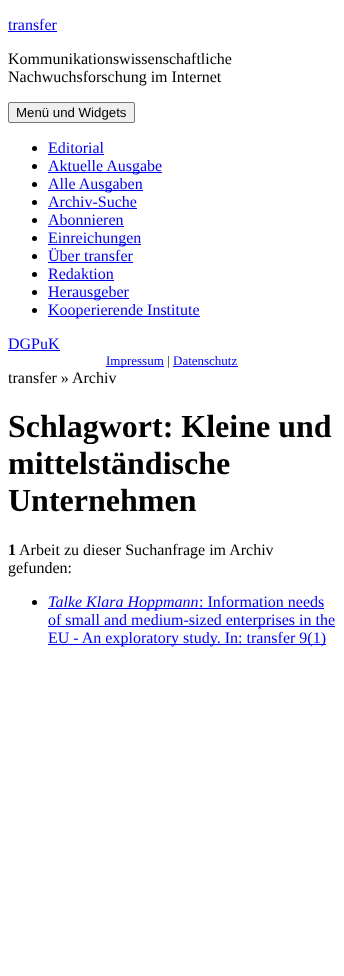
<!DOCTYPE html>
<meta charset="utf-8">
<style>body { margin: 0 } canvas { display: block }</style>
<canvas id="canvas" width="344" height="976"></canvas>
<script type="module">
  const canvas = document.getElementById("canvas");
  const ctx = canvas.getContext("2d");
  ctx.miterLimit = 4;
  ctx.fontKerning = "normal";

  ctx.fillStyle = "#ffffff";
  ctx.fillRect(0, 0, 344, 976);
  ctx.font = "16px Liberation Serif";
  ctx.fillStyle = "#0000ee";
  ctx.fillText("transfer", 8, 30);
  ctx.fillRect(8, 31, 49, 1);
  ctx.fillStyle = "#000000";
  ctx.fillText("Kommunikationswissenschaftliche", 8, 64);
  ctx.fillText("Nachwuchsforschung im Internet", 8, 82);
  ctx.fillStyle = "#efefef";
  ctx.beginPath();
  ctx.roundRect(8.5, 102.5, 126, 20, 1.5);
  ctx.fill();
  ctx.strokeStyle = "#767676";
  ctx.stroke();
  ctx.font = "13.25px Liberation Sans";
  ctx.fillStyle = "#000000";
  ctx.fillText("Menü und Widgets", 16, 117);
  ctx.beginPath();
  ctx.arc(34.5, 148.5, 2.5, 0, Math.PI * 2);
  ctx.fill();
  ctx.font = "16px Liberation Serif";
  ctx.fillStyle = "#0000ee";
  ctx.fillText("Editorial", 48, 153);
  ctx.fillRect(48, 154, 56, 1);
  ctx.fillStyle = "#000000";
  ctx.beginPath();
  ctx.arc(34.5, 166.5, 2.5, 0, Math.PI * 2);
  ctx.fill();
  ctx.fillStyle = "#0000ee";
  ctx.fillRect(48, 172, 114, 1);
  ctx.fillText("Aktuelle Ausgabe", 48, 171);
  ctx.fillStyle = "#000000";
  ctx.beginPath();
  ctx.arc(34.5, 184.5, 2.5, 0, Math.PI * 2);
  ctx.fill();
  ctx.fillStyle = "#0000ee";
  ctx.fillRect(48, 190, 95, 1);
  ctx.fillText("Alle Ausgaben", 48, 189);
  ctx.fillStyle = "#000000";
  ctx.beginPath();
  ctx.arc(34.5, 202.5, 2.5, 0, Math.PI * 2);
  ctx.fill();
  ctx.fillStyle = "#0000ee";
  ctx.fillText("Archiv-Suche", 48, 207);
  ctx.fillRect(48, 208, 89, 1);
  ctx.fillStyle = "#000000";
  ctx.beginPath();
  ctx.arc(34.5, 220.5, 2.5, 0, Math.PI * 2);
  ctx.fill();
  ctx.fillStyle = "#0000ee";
  ctx.fillText("Abonnieren", 48, 225);
  ctx.fillRect(48, 226, 76, 1);
  ctx.fillStyle = "#000000";
  ctx.beginPath();
  ctx.arc(34.5, 238.5, 2.5, 0, Math.PI * 2);
  ctx.fill();
  ctx.fillStyle = "#0000ee";
  ctx.fillRect(48, 244, 93, 1);
  ctx.fillText("Einreichungen", 48, 243);
  ctx.fillStyle = "#000000";
  ctx.beginPath();
  ctx.arc(34.5, 256.5, 2.5, 0, Math.PI * 2);
  ctx.fill();
  ctx.fillStyle = "#0000ee";
  ctx.fillText("Über transfer", 48, 261);
  ctx.fillRect(48, 262, 85, 1);
  ctx.fillStyle = "#000000";
  ctx.beginPath();
  ctx.arc(34.5, 274.5, 2.5, 0, Math.PI * 2);
  ctx.fill();
  ctx.fillStyle = "#0000ee";
  ctx.fillText("Redaktion", 48, 279);
  ctx.fillRect(48, 280, 66, 1);
  ctx.fillStyle = "#000000";
  ctx.beginPath();
  ctx.arc(34.5, 292.5, 2.5, 0, Math.PI * 2);
  ctx.fill();
  ctx.fillStyle = "#0000ee";
  ctx.fillRect(48, 298, 81, 1);
  ctx.fillText("Herausgeber", 48, 297);
  ctx.fillStyle = "#000000";
  ctx.beginPath();
  ctx.arc(34.5, 310.5, 2.5, 0, Math.PI * 2);
  ctx.fill();
  ctx.fillStyle = "#0000ee";
  ctx.fillRect(48, 316, 152, 1);
  ctx.fillText("Kooperierende Institute", 48, 315);
  ctx.fillText("DGPuK", 8, 349);
  ctx.fillRect(8, 350, 52, 1);
  ctx.fillRect(106, 366, 58, 1);
  ctx.font = "13px Liberation Serif";
  ctx.fillText("Impressum", 106, 365);
  ctx.fillStyle = "#000000";
  ctx.fillText("|", 167, 365);
  ctx.fillStyle = "#0000ee";
  ctx.fillText("Datenschutz", 173, 365);
  ctx.fillRect(173, 366, 65, 1);
  ctx.font = "16px Liberation Serif";
  ctx.fillStyle = "#000000";
  ctx.fillText("transfer » Archiv", 8, 383);
  ctx.font = "bold 32px Liberation Serif";
  ctx.fillText("Schlagwort: Kleine und", 8, 437);
  ctx.fillText("mittelständische", 8, 474);
  ctx.fillText("Unternehmen", 8, 511);
  ctx.font = "bold 16px Liberation Serif";
  ctx.fillText("1", 8, 555);
  ctx.font = "16px Liberation Serif";
  ctx.fillText("Arbeit zu dieser Suchanfrage im Archiv", 19, 555);
  ctx.fillText("gefunden:", 8, 573);
  ctx.beginPath();
  ctx.arc(34.5, 602.5, 2.5, 0, Math.PI * 2);
  ctx.fill();
  ctx.fillStyle = "#0000ee";
  ctx.fillRect(48, 608, 276, 1);
  ctx.font = "italic 16px Liberation Serif";
  ctx.fillText("Talke Klara Hoppmann", 48, 607);
  ctx.font = "16px Liberation Serif";
  ctx.fillText(": Information needs", 199, 607);
  ctx.fillRect(48, 626, 287, 1);
  ctx.fillText("of small and medium-sized enterprises in the", 48, 625);
  ctx.fillRect(48, 644, 278, 1);
  ctx.fillText("EU - An exploratory study. In: transfer 9(1)", 48, 643);
</script>
